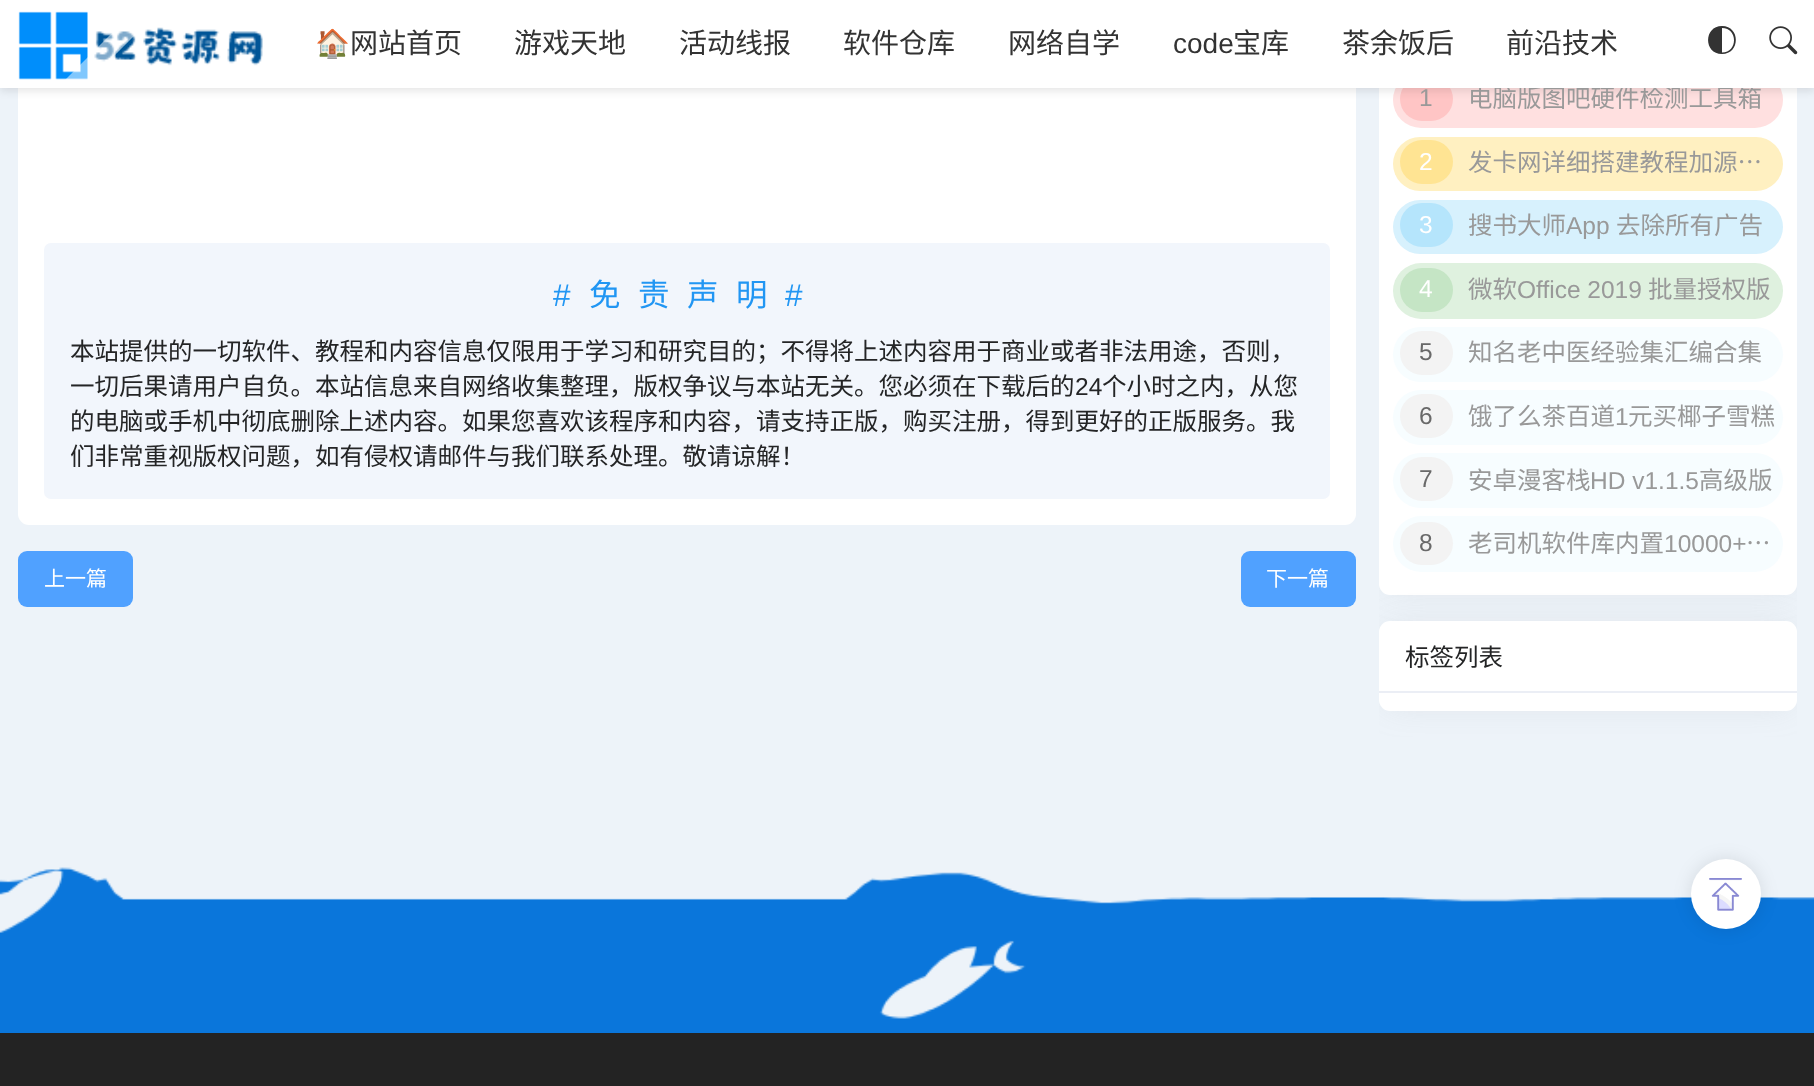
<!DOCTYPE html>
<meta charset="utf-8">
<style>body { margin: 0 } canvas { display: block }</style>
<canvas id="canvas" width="1814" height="1086"></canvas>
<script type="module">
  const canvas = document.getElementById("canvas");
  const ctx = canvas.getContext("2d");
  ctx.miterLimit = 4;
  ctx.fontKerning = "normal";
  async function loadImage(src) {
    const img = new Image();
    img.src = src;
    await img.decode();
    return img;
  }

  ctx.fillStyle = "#edf3f9";
  ctx.fillRect(0, 0, 1814, 1086);
  ctx.fillStyle = "#ffffff";
  ctx.beginPath();
  ctx.roundRect(18, -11, 1338, 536, 11);
  ctx.fill();
  ctx.fillStyle = "#50a1ff";
  ctx.beginPath();
  ctx.roundRect(1241, 551, 115, 56, 9);
  ctx.fill();
  ctx.save();
  ctx.beginPath();
  ctx.rect(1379, 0, 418, 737);
  ctx.clip();
  ctx.fillStyle = "rgba(158, 158, 158, 0.22)";
  ctx.filter = "blur(17.5px)";
  ctx.beginPath();
  ctx.roundRect(1388, -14, 401, 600, 2);
  ctx.fill();
  ctx.filter = "none";
  ctx.restore();
  ctx.fillStyle = "#ffffff";
  ctx.beginPath();
  ctx.roundRect(1379, -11, 418, 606, 11);
  ctx.fill();
  ctx.fillStyle = "#ffe0e0";
  ctx.beginPath();
  ctx.roundRect(1393, 72, 390, 56, 28);
  ctx.fill();
  ctx.fillStyle = "#ffc5c5";
  ctx.beginPath();
  ctx.roundRect(1400, 77, 53, 44, 22);
  ctx.fill();
  ctx.fillStyle = "rgba(0, 0, 0, 0.1)";
  ctx.filter = "blur(4.5px)";
  ctx.beginPath();
  ctx.rect(0, 4, 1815, 87);
  ctx.fill();
  ctx.filter = "none";
  ctx.font = "24.5px Noto Sans CJK SC";
  ctx.fillStyle = "#999999";
  ctx.fillText("电脑版图吧硬件检测工具箱", 1468, 107);
  ctx.fillStyle = "#ffffff";
  ctx.fillRect(0, 0, 1814, 88);
  ctx.drawImage(await loadImage("img1.png"), 18, 11, 245, 69);
  ctx.save();
  ctx.beginPath();
  ctx.rect(18, 0, 245, 88);
  ctx.clip();
  ctx.fillStyle = "rgba(255, 255, 255, 0.5)";
  ctx.beginPath();
  ctx.moveTo(50, 95);
  ctx.lineTo(235, -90);
  ctx.lineTo(248, -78);
  ctx.lineTo(62, 108);
  ctx.closePath();
  ctx.fill();
  ctx.restore();
  ctx.font = "28px Noto Color Emoji";
  ctx.fillStyle = "#333333";
  ctx.fillText("🏠", 315, 53);
  ctx.font = "28px Noto Sans CJK SC";
  ctx.fillText("网站首页", 350, 53);
  ctx.fillText("游戏天地", 514, 53);
  ctx.fillText("活动线报", 679, 53);
  ctx.fillText("软件仓库", 843, 53);
  ctx.fillText("网络自学", 1008, 53);
  ctx.font = "28px Liberation Sans";
  ctx.fillText("code", 1173, 53);
  ctx.font = "28px Noto Sans CJK SC";
  ctx.fillText("宝库", 1233, 53);
  ctx.fillText("茶余饭后", 1342, 53);
  ctx.fillText("前沿技术", 1506, 53);
  ctx.beginPath();
  ctx.moveTo(1722, 52.5);
  ctx.bezierCurveTo(1738, 52.5, 1738, 28, 1722, 28);
  ctx.closePath();
  ctx.moveTo(1722, 54);
  ctx.bezierCurveTo(1703.5, 54, 1703.5, 26, 1722, 26);
  ctx.bezierCurveTo(1740.5, 26, 1740.5, 54, 1722, 54);
  ctx.closePath();
  ctx.fill();
  ctx.drawImage(await loadImage("img2.png"), 1769, 26, 29, 29);
  ctx.fillStyle = "#f2f6fc";
  ctx.beginPath();
  ctx.roundRect(44, 243, 1286, 256, 7);
  ctx.fill();
  ctx.letterSpacing = "17.5px";
  ctx.font = "31.5px Liberation Sans";
  ctx.fillStyle = "#2196f3";
  ctx.fillText("#", 553, 306);
  ctx.font = "31.5px Noto Sans CJK SC";
  ctx.fillText("免责声明", 589, 306);
  ctx.font = "31.5px Liberation Sans";
  ctx.fillText("#", 785, 306);
  ctx.letterSpacing = "0px";
  ctx.font = "24.5px Noto Sans CJK SC";
  ctx.fillStyle = "#242526";
  ctx.fillText("本站提供的一切软件、教程和内容信息仅限用于学习和研究目的；不得将上述内容用于商业或者非法用途，否则，", 70, 360);
  ctx.fillText("一切后果请用户自负。本站信息来自网络收集整理，版权争议与本站无关。您必须在下载后的", 70, 395);
  ctx.font = "24.5px Liberation Sans";
  ctx.fillText("24", 1075, 395);
  ctx.font = "24.5px Noto Sans CJK SC";
  ctx.fillText("个小时之内，从您", 1102, 395);
  ctx.fillText("的电脑或手机中彻底删除上述内容。如果您喜欢该程序和内容，请支持正版，购买注册，得到更好的正版服务。我", 70, 430);
  ctx.fillText("们非常重视版权问题，如有侵权请邮件与我们联系处理。敬请谅解！", 70, 465);
  ctx.fillStyle = "#50a1ff";
  ctx.beginPath();
  ctx.roundRect(18, 551, 115, 56, 9);
  ctx.fill();
  ctx.font = "21px Noto Sans CJK SC";
  ctx.fillStyle = "#ffffff";
  ctx.fillText("上一篇", 44, 586);
  ctx.fillText("下一篇", 1266, 586);
  ctx.font = "24.5px Liberation Sans";
  ctx.fillStyle = "#999999";
  ctx.fillText("1", 1419, 106);
  ctx.fillStyle = "#fff0c1";
  ctx.beginPath();
  ctx.roundRect(1393, 137, 390, 54, 27);
  ctx.fill();
  ctx.fillStyle = "#ffe493";
  ctx.beginPath();
  ctx.roundRect(1400, 140, 53, 44, 22);
  ctx.fill();
  ctx.fillStyle = "#ffffff";
  ctx.fillText("2", 1419, 170);
  ctx.font = "24.5px Noto Sans CJK SC";
  ctx.fillStyle = "#999999";
  ctx.fillText("发卡网详细搭建教程加源…", 1468, 171);
  ctx.fillStyle = "#d7f1fd";
  ctx.beginPath();
  ctx.roundRect(1393, 200, 390, 54, 27);
  ctx.fill();
  ctx.fillStyle = "#b5e5fc";
  ctx.beginPath();
  ctx.roundRect(1400, 203, 53, 44, 22);
  ctx.fill();
  ctx.font = "24.5px Liberation Sans";
  ctx.fillStyle = "#ffffff";
  ctx.fillText("3", 1419, 233);
  ctx.font = "24.5px Noto Sans CJK SC";
  ctx.fillStyle = "#999999";
  ctx.fillText("搜书大师", 1468, 234);
  ctx.font = "24.5px Liberation Sans";
  ctx.fillText("App", 1566, 234);
  ctx.font = "24.5px Noto Sans CJK SC";
  ctx.fillText("去除所有广告", 1616, 234);
  ctx.fillStyle = "#dff1df";
  ctx.beginPath();
  ctx.roundRect(1393, 263, 390, 56, 28);
  ctx.fill();
  ctx.fillStyle = "#c5e5c5";
  ctx.beginPath();
  ctx.roundRect(1400, 268, 53, 44, 22);
  ctx.fill();
  ctx.font = "24.5px Liberation Sans";
  ctx.fillStyle = "#ffffff";
  ctx.fillText("4", 1419, 297);
  ctx.font = "24.5px Noto Sans CJK SC";
  ctx.fillStyle = "#999999";
  ctx.fillText("微软", 1468, 298);
  ctx.font = "24.5px Liberation Sans";
  ctx.fillText("Office 2019", 1517, 298);
  ctx.font = "24.5px Noto Sans CJK SC";
  ctx.fillText("批量授权版", 1648, 298);
  ctx.fillStyle = "#f7fdff";
  ctx.beginPath();
  ctx.roundRect(1393, 327, 390, 55, 27.5);
  ctx.fill();
  ctx.fillStyle = "#f3f3f3";
  ctx.beginPath();
  ctx.roundRect(1400, 331, 53, 44, 22);
  ctx.fill();
  ctx.font = "24.5px Liberation Sans";
  ctx.fillStyle = "#696969";
  ctx.fillText("5", 1419, 360);
  ctx.font = "24.5px Noto Sans CJK SC";
  ctx.fillStyle = "#999999";
  ctx.fillText("知名老中医经验集汇编合集", 1468, 361);
  ctx.fillStyle = "#f7fdff";
  ctx.beginPath();
  ctx.roundRect(1393, 390, 390, 55, 27.5);
  ctx.fill();
  ctx.fillStyle = "#f3f3f3";
  ctx.beginPath();
  ctx.roundRect(1400, 394, 53, 44, 22);
  ctx.fill();
  ctx.font = "24.5px Liberation Sans";
  ctx.fillStyle = "#696969";
  ctx.fillText("6", 1419, 424);
  ctx.font = "24.5px Noto Sans CJK SC";
  ctx.fillStyle = "#999999";
  ctx.fillText("饿了么茶百道", 1468, 425);
  ctx.font = "24.5px Liberation Sans";
  ctx.fillText("1", 1615, 425);
  ctx.font = "24.5px Noto Sans CJK SC";
  ctx.fillText("元买椰子雪糕", 1628, 425);
  ctx.fillStyle = "#f7fdff";
  ctx.beginPath();
  ctx.roundRect(1393, 453, 390, 55, 27.5);
  ctx.fill();
  ctx.fillStyle = "#f3f3f3";
  ctx.beginPath();
  ctx.roundRect(1400, 457, 53, 44, 22);
  ctx.fill();
  ctx.font = "24.5px Liberation Sans";
  ctx.fillStyle = "#696969";
  ctx.fillText("7", 1419, 487);
  ctx.font = "24.5px Noto Sans CJK SC";
  ctx.fillStyle = "#999999";
  ctx.fillText("安卓漫客栈", 1468, 489);
  ctx.font = "24.5px Liberation Sans";
  ctx.fillText("HD v1.1.5", 1590, 489);
  ctx.font = "24.5px Noto Sans CJK SC";
  ctx.fillText("高级版", 1699, 489);
  ctx.fillStyle = "#f7fdff";
  ctx.beginPath();
  ctx.roundRect(1393, 516, 390, 56, 28);
  ctx.fill();
  ctx.fillStyle = "#f3f3f3";
  ctx.beginPath();
  ctx.roundRect(1400, 522, 53, 43, 21.5);
  ctx.fill();
  ctx.font = "24.5px Liberation Sans";
  ctx.fillStyle = "#696969";
  ctx.fillText("8", 1419, 551);
  ctx.font = "24.5px Noto Sans CJK SC";
  ctx.fillStyle = "#999999";
  ctx.fillText("老司机软件库内置", 1468, 552);
  ctx.font = "24.5px Liberation Sans";
  ctx.fillText("10000+", 1664, 552);
  ctx.font = "24.5px Noto Sans CJK SC";
  ctx.fillText("…", 1746, 552);
  ctx.save();
  ctx.beginPath();
  ctx.rect(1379, 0, 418, 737);
  ctx.clip();
  ctx.fillStyle = "rgba(158, 158, 158, 0.22)";
  ctx.filter = "blur(17.5px)";
  ctx.beginPath();
  ctx.roundRect(1388, 630, 401, 72, 2);
  ctx.fill();
  ctx.filter = "none";
  ctx.restore();
  ctx.fillStyle = "#ffffff";
  ctx.beginPath();
  ctx.roundRect(1379, 621, 418, 90, 11);
  ctx.fill();
  ctx.fillStyle = "#ebeef5";
  ctx.fillRect(1379, 691, 418, 2);
  ctx.fillStyle = "#242526";
  ctx.fillText("标签列表", 1405, 666);
  ctx.drawImage(await loadImage("img4.png"), 0, 867, 1814, 166);
  ctx.fillStyle = "rgba(0, 0, 0, 0.1)";
  ctx.filter = "blur(9px)";
  ctx.beginPath();
  ctx.roundRect(1691, 859, 70, 70, 35);
  ctx.fill();
  ctx.filter = "none";
  ctx.fillStyle = "#ffffff";
  ctx.beginPath();
  ctx.arc(1726, 894, 35, 0, Math.PI * 2);
  ctx.fill();
  ctx.drawImage(await loadImage("img3.png"), 1709, 878, 33, 33);
  ctx.fillStyle = "#232323";
  ctx.fillRect(0, 1033, 1814, 53);
</script>
